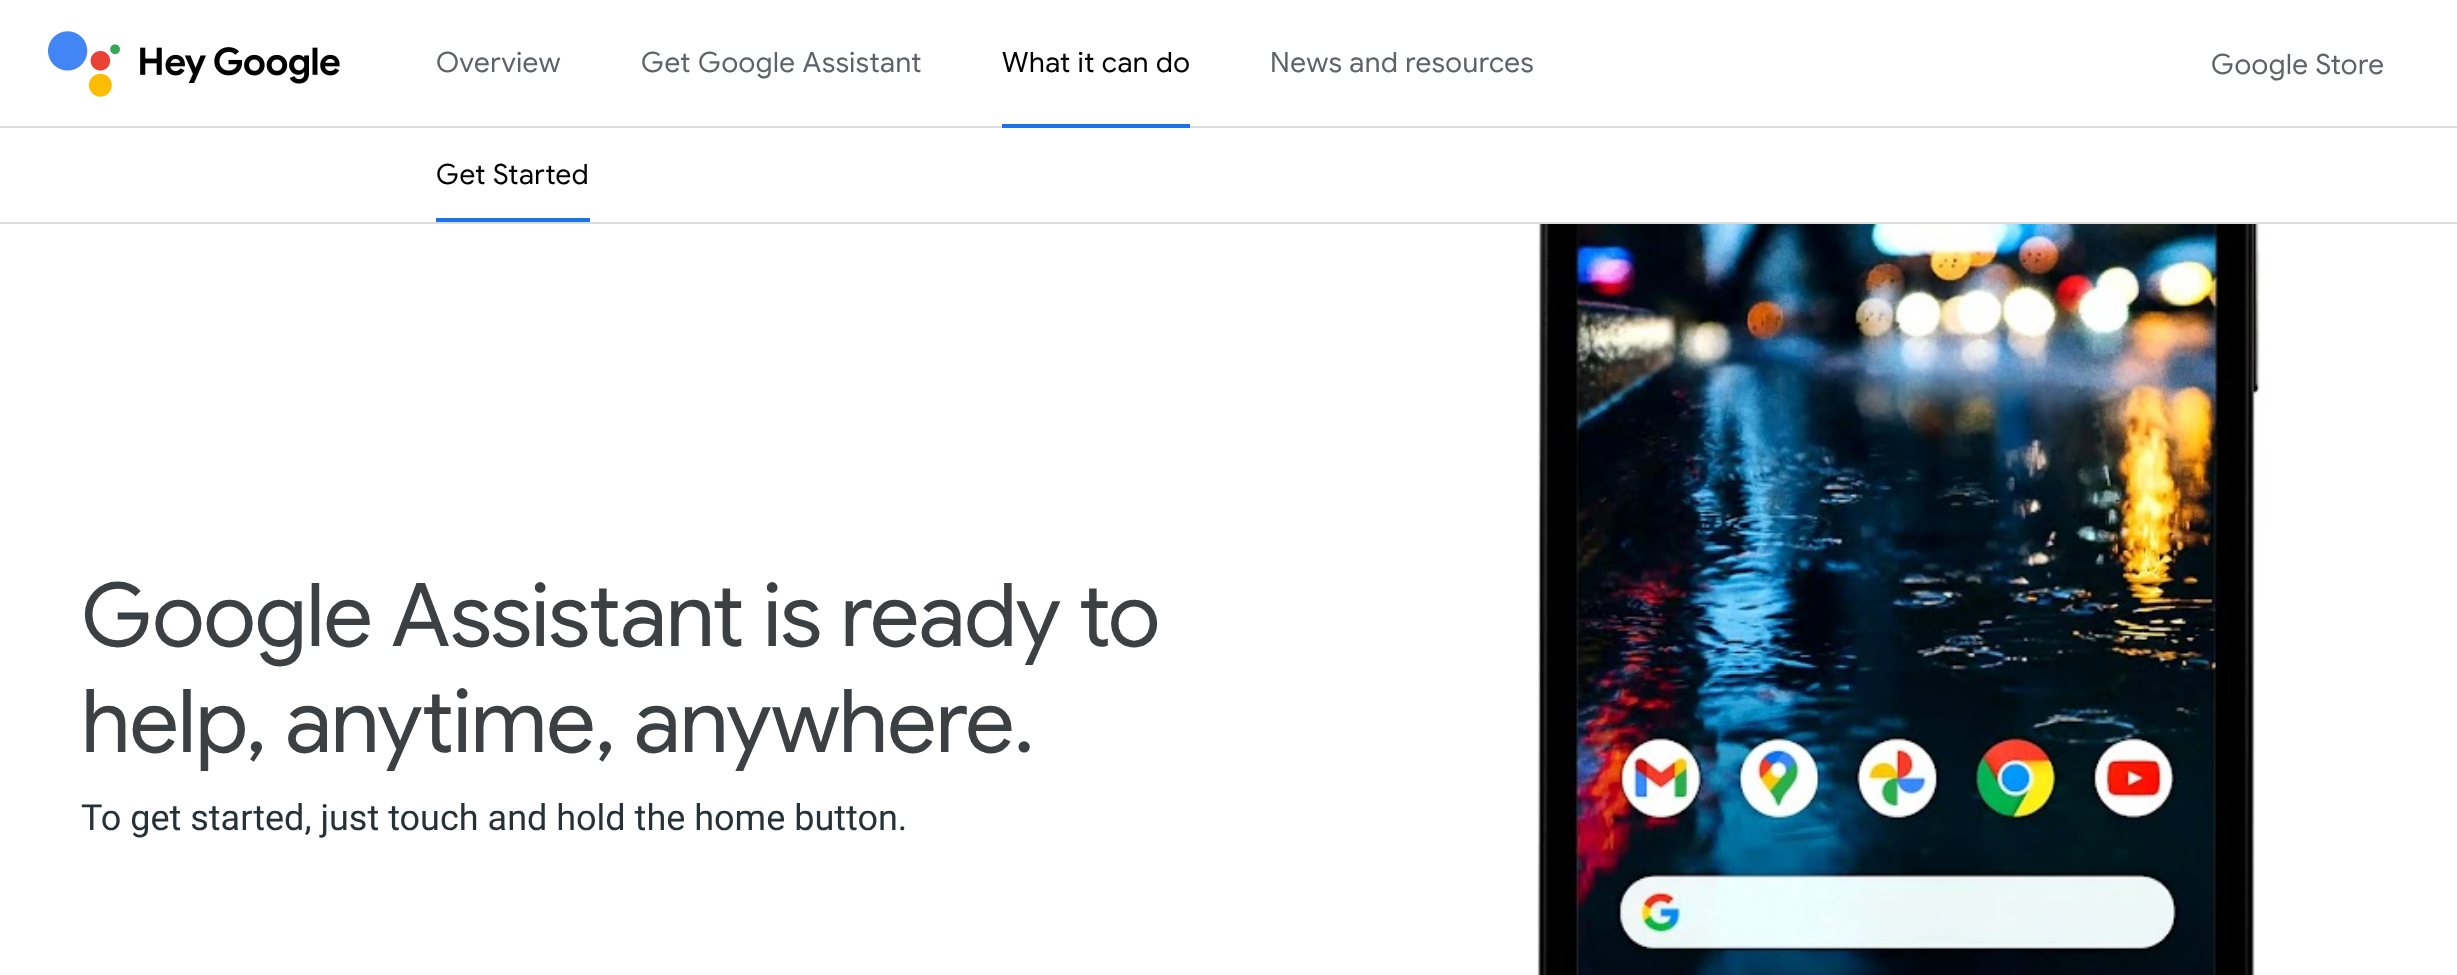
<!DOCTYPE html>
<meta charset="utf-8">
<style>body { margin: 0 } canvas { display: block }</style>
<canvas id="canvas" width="2457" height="975"></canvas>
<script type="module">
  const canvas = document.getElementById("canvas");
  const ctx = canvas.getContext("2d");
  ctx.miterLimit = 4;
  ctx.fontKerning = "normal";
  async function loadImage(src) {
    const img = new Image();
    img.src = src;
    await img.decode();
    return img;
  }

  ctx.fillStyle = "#ffffff";
  ctx.fillRect(0, 0, 2457, 975);
  ctx.fillStyle = "#dadce0";
  ctx.fillRect(0, 126, 2457, 2);
  ctx.drawImage(await loadImage("img1.png"), 48, 31, 292, 66);
  ctx.letterSpacing = "0.5px";
  ctx.font = "28px Google Sans";
  ctx.fillStyle = "#5f6368";
  ctx.fillText("Overview", 436, 72);
  ctx.fillStyle = "#000000";
  ctx.fillText("What it can do", 1002, 72);
  ctx.fillStyle = "#1a73e8";
  ctx.fillRect(1002, 124, 188, 4);
  ctx.fillStyle = "#000000";
  ctx.fillText("Get Started", 436, 184);
  ctx.fillStyle = "#1a73e8";
  ctx.fillRect(436, 218, 154, 4);
  ctx.fillStyle = "#5f6368";
  ctx.fillText("Get Google Assistant", 641, 72);
  ctx.fillText("News and resources", 1270, 72);
  ctx.fillText("Google Store", 2211, 74);
  ctx.fillStyle = "#dadce0";
  ctx.fillRect(0, 222, 2457, 2);
  ctx.letterSpacing = "-1px";
  ctx.font = "88px Google Sans";
  ctx.fillStyle = "#3c4043";
  ctx.fillText("Google Assistant is ready to", 81, 646);
  ctx.fillText("help, anytime, anywhere.", 81, 752);
  ctx.letterSpacing = "0px";
  ctx.font = "36px Roboto";
  ctx.fillStyle = "#263238";
  ctx.fillText("To get started, just touch and hold the home button.", 81, 830);
  ctx.drawImage(await loadImage("img2.png"), 1537, 224, 5, 751);
  ctx.drawImage(await loadImage("img3.png"), 1542, 224, 724, 751);
</script>
